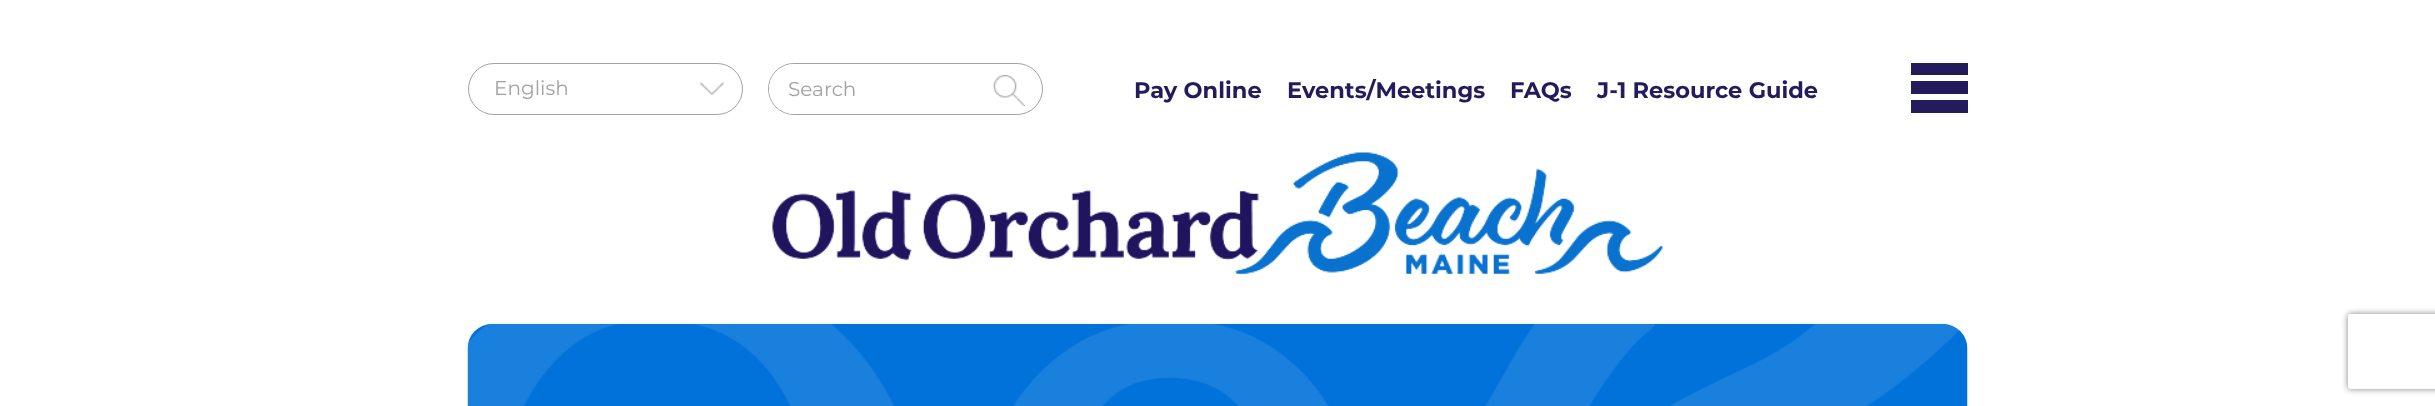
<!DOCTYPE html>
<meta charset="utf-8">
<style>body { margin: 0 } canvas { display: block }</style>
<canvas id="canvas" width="2435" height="406"></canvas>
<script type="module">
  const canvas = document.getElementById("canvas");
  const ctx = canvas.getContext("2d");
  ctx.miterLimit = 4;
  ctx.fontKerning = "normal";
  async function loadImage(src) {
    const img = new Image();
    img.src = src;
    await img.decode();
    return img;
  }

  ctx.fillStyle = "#ffffff";
  ctx.fillRect(0, 0, 2435, 406);
  ctx.drawImage(await loadImage("img1.png"), 700, 82, 24, 13);
  ctx.beginPath();
  ctx.roundRect(468.5, 63.5, 274, 51, 25.5);
  ctx.strokeStyle = "#a3a3a3";
  ctx.stroke();
  ctx.font = "20px Montserrat";
  ctx.fillStyle = "#a3a3a3";
  ctx.fillText("English", 494, 95);
  ctx.beginPath();
  ctx.roundRect(768.5, 63.5, 274, 51, 25.5);
  ctx.stroke();
  ctx.fillStyle = "#ffffff";
  ctx.beginPath();
  ctx.roundRect(769, 64, 200, 50, [25, 0, 0, 25]);
  ctx.fill();
  ctx.fillStyle = "#a3a3a3";
  ctx.fillText("Search", 788, 96);
  ctx.drawImage(await loadImage("img2.png"), 993, 75, 32, 32);
  ctx.font = "bold 22.5px Montserrat";
  ctx.fillStyle = "#241b5c";
  ctx.fillText("Pay Online", 1134, 98);
  ctx.fillText("Events/Meetings", 1287, 98);
  ctx.fillText("FAQs", 1510, 98);
  ctx.fillText("J-1 Resource Guide", 1597, 98);
  ctx.fillRect(1911, 63, 57, 12);
  ctx.fillRect(1911, 81, 57, 13);
  ctx.fillRect(1911, 100, 57, 13);
  ctx.drawImage(await loadImage("img3.png"), 772, 152, 891, 122);
  ctx.drawImage(await loadImage("img4.png"), 467, 323, 1501, 83);
  ctx.save();
  ctx.beginPath();
  ctx.moveTo(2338, 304);
  ctx.lineTo(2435, 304);
  ctx.lineTo(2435, 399);
  ctx.lineTo(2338, 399);
  ctx.closePath();
  ctx.moveTo(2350.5, 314);
  ctx.lineTo(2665.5, 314);
  ctx.bezierCurveTo(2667, 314, 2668, 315, 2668, 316.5);
  ctx.lineTo(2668, 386.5);
  ctx.bezierCurveTo(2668, 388, 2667, 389, 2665.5, 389);
  ctx.lineTo(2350.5, 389);
  ctx.bezierCurveTo(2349, 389, 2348, 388, 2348, 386.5);
  ctx.lineTo(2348, 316.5);
  ctx.bezierCurveTo(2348, 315, 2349, 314, 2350.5, 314);
  ctx.closePath();
  ctx.clip("evenodd");
  ctx.fillStyle = "#808080";
  ctx.filter = "blur(3px)";
  ctx.beginPath();
  ctx.roundRect(2348, 314, 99, 75, 2.5);
  ctx.fill();
  ctx.filter = "none";
  ctx.restore();
</script>
